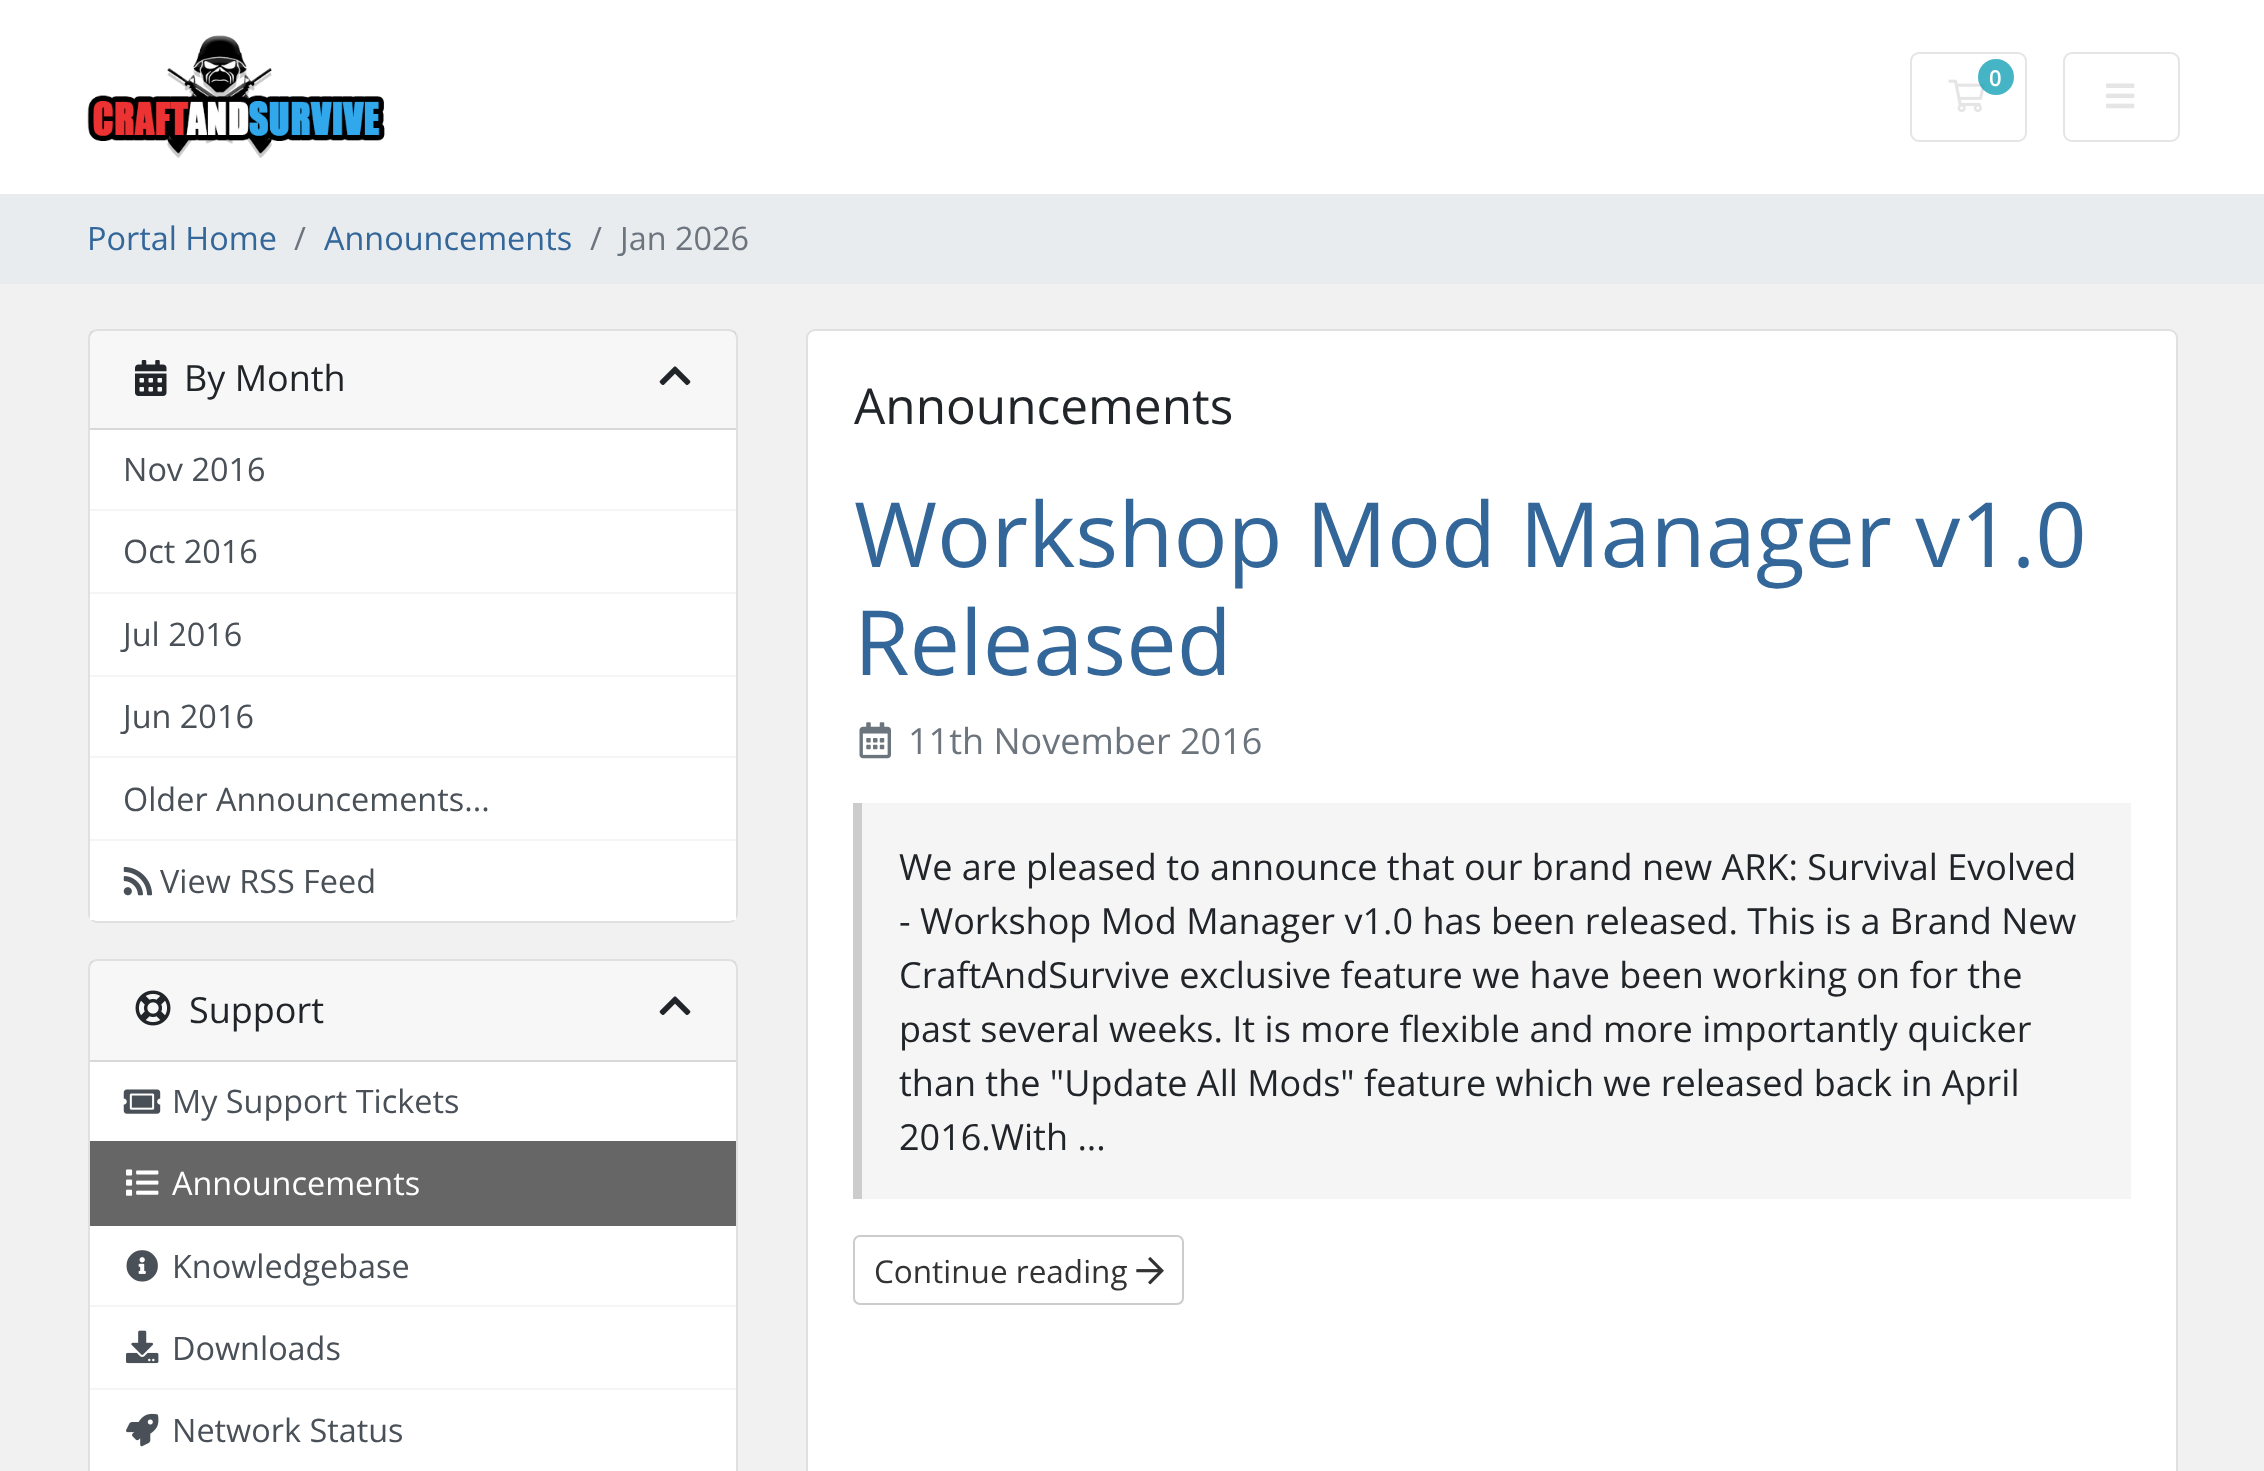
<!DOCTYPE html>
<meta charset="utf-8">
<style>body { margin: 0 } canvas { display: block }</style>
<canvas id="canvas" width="2264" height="1471"></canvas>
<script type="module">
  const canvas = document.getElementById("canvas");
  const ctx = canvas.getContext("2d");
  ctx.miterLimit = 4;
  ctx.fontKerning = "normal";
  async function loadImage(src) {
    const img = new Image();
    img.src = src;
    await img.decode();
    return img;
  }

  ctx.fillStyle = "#f1f1f1";
  ctx.fillRect(0, 0, 2264, 1471);
  ctx.fillStyle = "#ffffff";
  ctx.fillRect(0, 0, 2264, 194);
  ctx.drawImage(await loadImage("img1.png"), 87, 35, 298, 123);
  ctx.beginPath();
  ctx.roundRect(1911, 53, 115, 88, 8);
  ctx.strokeStyle = "#e5e5e5";
  ctx.lineWidth = 2;
  ctx.stroke();
  ctx.drawImage(await loadImage("img2.png"), 1948, 79, 37, 33);
  ctx.fillStyle = "rgba(23, 162, 184, 0.8)";
  ctx.beginPath();
  ctx.arc(1996, 77, 18, 0, Math.PI * 2);
  ctx.fill();
  ctx.font = "600 22px Open Sans";
  ctx.fillStyle = "#ffffff";
  ctx.fillText("0", 1989, 86);
  ctx.beginPath();
  ctx.roundRect(2064, 53, 115, 88, 8);
  ctx.stroke();
  ctx.drawImage(await loadImage("img3.png"), 2106, 83, 29, 26);
  ctx.fillStyle = "#e9ecef";
  ctx.fillRect(0, 194, 2264, 90);
  ctx.font = "32.4px Open Sans";
  ctx.fillStyle = "#336699";
  ctx.fillText("Portal Home", 87, 250);
  ctx.fillStyle = "#6c757d";
  ctx.fillText("/", 294, 250);
  ctx.fillStyle = "#336699";
  ctx.fillText("Announcements", 324, 250);
  ctx.fillStyle = "#6c757d";
  ctx.fillText("/", 590, 250);
  ctx.fillText("Jan 2026", 620, 250);
  ctx.fillStyle = "#ffffff";
  ctx.beginPath();
  ctx.roundRect(88, 329, 650, 594, 9);
  ctx.fill();
  ctx.beginPath();
  ctx.roundRect(89, 330, 648, 592, 8);
  ctx.strokeStyle = "rgba(0, 0, 0, 0.12)";
  ctx.stroke();
  ctx.fillStyle = "rgba(0, 0, 0, 0.03)";
  ctx.fillRect(90, 331, 646, 97);
  ctx.fillStyle = "#d8d8d8";
  ctx.fillRect(90, 428, 646, 2);
  ctx.drawImage(await loadImage("img4.png"), 135, 360, 32, 36);
  ctx.font = "36px Open Sans";
  ctx.fillStyle = "#212529";
  ctx.fillText("By Month", 184, 391);
  ctx.drawImage(await loadImage("img5.png"), 659, 366, 32, 19);
  ctx.fillStyle = "#f5f5f5";
  ctx.fillRect(90, 509, 646, 2);
  ctx.font = "32.4px Open Sans";
  ctx.fillStyle = "#495057";
  ctx.fillText("Nov 2016", 123, 481);
  ctx.fillStyle = "#f5f5f5";
  ctx.fillRect(90, 592, 646, 2);
  ctx.fillStyle = "#495057";
  ctx.fillText("Oct 2016", 123, 563);
  ctx.fillStyle = "#f5f5f5";
  ctx.fillRect(90, 675, 646, 2);
  ctx.fillStyle = "#495057";
  ctx.fillText("Jul 2016", 123, 646);
  ctx.fillStyle = "#f5f5f5";
  ctx.fillRect(90, 756, 646, 2);
  ctx.fillStyle = "#495057";
  ctx.fillText("Jun 2016", 123, 728);
  ctx.fillStyle = "#f5f5f5";
  ctx.fillRect(90, 839, 646, 2);
  ctx.fillStyle = "#495057";
  ctx.fillText("Older Announcements...", 123, 811);
  ctx.fillStyle = "#ffffff";
  ctx.fillRect(90, 915, 646, 5);
  ctx.drawImage(await loadImage("img6.png"), 123, 866, 30, 30);
  ctx.fillStyle = "#495057";
  ctx.fillText("View RSS Feed", 160, 893);
  ctx.fillStyle = "#ffffff";
  ctx.beginPath();
  ctx.roundRect(88, 959, 650, 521, 9);
  ctx.fill();
  ctx.beginPath();
  ctx.roundRect(89, 960, 648, 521, 8);
  ctx.stroke();
  ctx.fillStyle = "rgba(0, 0, 0, 0.03)";
  ctx.fillRect(90, 961, 646, 99);
  ctx.fillStyle = "#d8d8d8";
  ctx.fillRect(90, 1060, 646, 2);
  ctx.drawImage(await loadImage("img7.png"), 135, 990, 36, 36);
  ctx.font = "36px Open Sans";
  ctx.fillStyle = "#212529";
  ctx.fillText("Support", 189, 1023);
  ctx.drawImage(await loadImage("img5.png"), 659, 996, 32, 19);
  ctx.drawImage(await loadImage("img8.png"), 123, 1089, 38, 25);
  ctx.font = "32.4px Open Sans";
  ctx.fillStyle = "#495057";
  ctx.fillText("My Support Tickets", 172, 1113);
  ctx.fillStyle = "#666666";
  ctx.fillRect(90, 1141, 646, 85);
  ctx.drawImage(await loadImage("img9.png"), 126, 1169, 33, 27);
  ctx.fillStyle = "#ffffff";
  ctx.fillText("Announcements", 172, 1195);
  ctx.fillStyle = "#f5f5f5";
  ctx.fillRect(90, 1305, 646, 2);
  ctx.drawImage(await loadImage("img10.png"), 126, 1250, 32, 32);
  ctx.fillStyle = "#495057";
  ctx.fillText("Knowledgebase", 172, 1278);
  ctx.fillStyle = "#f5f5f5";
  ctx.fillRect(90, 1388, 646, 2);
  ctx.drawImage(await loadImage("img11.png"), 126, 1330, 33, 34);
  ctx.fillStyle = "#495057";
  ctx.fillText("Downloads", 172, 1360);
  ctx.drawImage(await loadImage("img12.png"), 126, 1413, 33, 34);
  ctx.fillText("Network Status", 172, 1442);
  ctx.fillStyle = "#ffffff";
  ctx.beginPath();
  ctx.roundRect(806, 329, 1372, 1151, 9);
  ctx.fill();
  ctx.beginPath();
  ctx.roundRect(807, 330, 1370, 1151, 8);
  ctx.stroke();
  ctx.font = "49.5px Open Sans";
  ctx.fillStyle = "#212529";
  ctx.fillText("Announcements", 854, 424);
  ctx.font = "90px Open Sans";
  ctx.fillStyle = "#336699";
  ctx.fillText("Workshop Mod Manager v1.0", 854, 567);
  ctx.fillText("Released", 854, 675);
  ctx.drawImage(await loadImage("img13.png"), 859, 722, 32, 37);
  ctx.font = "36px Open Sans";
  ctx.fillStyle = "#6c757d";
  ctx.fillText("11th November 2016", 908, 754);
  ctx.fillStyle = "#f5f5f5";
  ctx.fillRect(862, 803, 1269, 396);
  ctx.fillStyle = "#cccccc";
  ctx.fillRect(853, 803, 9, 396);
  ctx.fillStyle = "#212529";
  ctx.fillText("We are pleased to announce that our brand new ARK: Survival Evolved", 899, 880);
  ctx.fillText("- Workshop Mod Manager v1.0 has been released. This is a Brand New", 899, 934);
  ctx.fillText("CraftAndSurvive exclusive feature we have been working on for the", 899, 988);
  ctx.fillText("past several weeks. It is more flexible and more importantly quicker", 899, 1042);
  ctx.fillText("than the \"Update All Mods\" feature which we released back in April", 899, 1096);
  ctx.fillText("2016.With ...", 899, 1150);
  ctx.beginPath();
  ctx.roundRect(854, 1236, 329, 68, 6);
  ctx.strokeStyle = "#cccccc";
  ctx.stroke();
  ctx.font = "31.5px Open Sans";
  ctx.fillStyle = "#333333";
  ctx.fillText("Continue reading", 874, 1283);
  ctx.drawImage(await loadImage("img14.png"), 1136, 1257, 28, 28);
</script>
